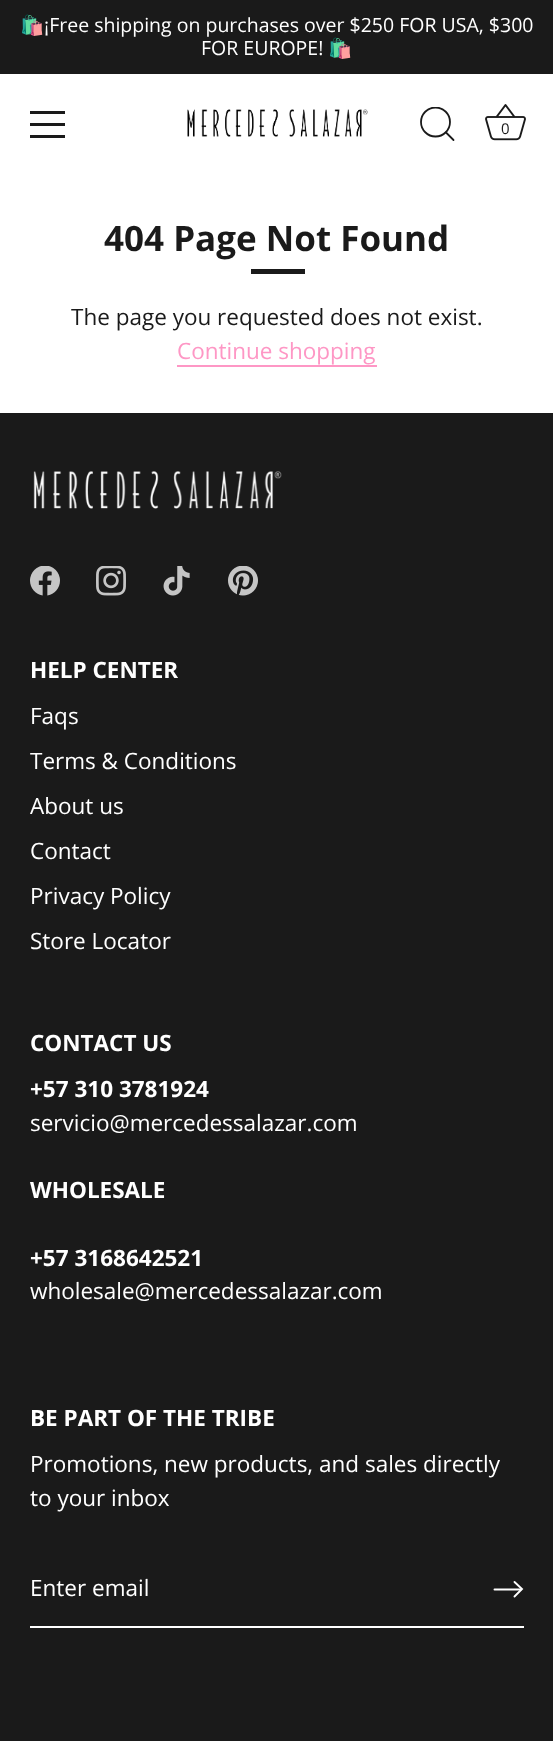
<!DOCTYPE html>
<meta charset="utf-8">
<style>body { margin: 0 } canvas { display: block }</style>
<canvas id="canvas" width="553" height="1741"></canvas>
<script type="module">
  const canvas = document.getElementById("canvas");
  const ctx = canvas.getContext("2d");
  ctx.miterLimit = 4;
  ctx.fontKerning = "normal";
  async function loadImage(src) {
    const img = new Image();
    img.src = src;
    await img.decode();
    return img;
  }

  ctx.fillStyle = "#ffffff";
  ctx.fillRect(0, 0, 553, 1741);
  ctx.fillStyle = "#1a1a1a";
  ctx.fillRect(0, 0, 553, 74);
  ctx.font = "19.5px Noto Color Emoji";
  ctx.fillStyle = "#ffffff";
  ctx.fillText("🛍️", 20, 32);
  ctx.font = "19.5px Open Sans";
  ctx.fillText("¡Free shipping on purchases over $250 FOR USA, $300", 44, 32);
  ctx.fillText("FOR EUROPE!", 201, 55);
  ctx.font = "19.5px Noto Color Emoji";
  ctx.fillText("🛍️", 328, 55);
  ctx.fillStyle = "#1a1a1a";
  ctx.fillRect(30, 111, 35, 3);
  ctx.fillRect(30, 123, 35, 3);
  ctx.fillRect(30, 135, 35, 3);
  ctx.drawImage(await loadImage("img1.png"), 187, 109, 181, 28);
  ctx.save();
  ctx.beginPath();
  ctx.rect(420, 107, 36, 36);
  ctx.clip();
  ctx.beginPath();
  ctx.arc(435.5, 122, 14.5, 0, Math.PI * 2);
  ctx.strokeStyle = "#1a1a1a";
  ctx.lineWidth = 1.8;
  ctx.stroke();
  ctx.restore();
  ctx.beginPath();
  ctx.moveTo(453.5, 140);
  ctx.lineTo(446, 132.5);
  ctx.strokeStyle = "#1a1a1a";
  ctx.lineWidth = 1.8;
  ctx.lineCap = "round";
  ctx.lineJoin = "round";
  ctx.stroke();
  ctx.drawImage(await loadImage("img2.png"), 485, 104, 41, 37);
  ctx.font = "15px Open Sans";
  ctx.fillText("0", 501, 134);
  ctx.font = "bold 35px Open Sans";
  ctx.fillText("404 Page Not Found", 104, 251);
  ctx.fillRect(251, 269, 54, 5);
  ctx.font = "22.5px Open Sans";
  ctx.fillText("The page you requested does not exist.", 71, 325);
  ctx.fillStyle = "#fe97c5";
  ctx.fillText("Continue shopping", 177, 359);
  ctx.fillRect(177, 365, 200, 2);
  ctx.fillStyle = "#1a1a1a";
  ctx.fillRect(0, 413, 553, 1328);
  ctx.drawImage(await loadImage("img3.png"), 33, 471, 249, 38);
  ctx.drawImage(await loadImage("img4.png"), 30, 566, 30, 30);
  ctx.drawImage(await loadImage("img5.png"), 96, 566, 30, 30);
  ctx.drawImage(await loadImage("img6.png"), 163, 566, 27, 30);
  ctx.drawImage(await loadImage("img7.png"), 228, 566, 30, 30);
  ctx.font = "bold 22.5px Open Sans";
  ctx.fillStyle = "#ffffff";
  ctx.fillText("HELP CENTER", 30, 678);
  ctx.font = "22.5px Open Sans";
  ctx.fillText("Faqs", 30, 724);
  ctx.fillText("Terms & Conditions", 30, 769);
  ctx.fillText("About us", 30, 814);
  ctx.fillText("Contact", 30, 859);
  ctx.fillText("Privacy Policy", 30, 904);
  ctx.fillText("Store Locator", 30, 949);
  ctx.font = "bold 22.5px Open Sans";
  ctx.fillText("CONTACT US", 30, 1051);
  ctx.fillText("+57 310 3781924", 30, 1097);
  ctx.font = "22.5px Open Sans";
  ctx.fillText("servicio@mercedessalazar.com", 30, 1131);
  ctx.font = "bold 22.5px Open Sans";
  ctx.fillText("WHOLESALE", 30, 1198);
  ctx.fillText("+57 3168642521", 30, 1266);
  ctx.font = "22.5px Open Sans";
  ctx.fillText("wholesale@mercedessalazar.com", 30, 1299);
  ctx.font = "bold 22.5px Open Sans";
  ctx.fillText("BE PART OF THE TRIBE", 30, 1426);
  ctx.font = "22.5px Open Sans";
  ctx.fillText("Promotions, new products, and sales directly", 30, 1472);
  ctx.fillText("to your inbox", 30, 1506);
  ctx.fillRect(30, 1626, 494, 2);
  ctx.fillText("Enter email", 30, 1596);
  ctx.beginPath();
  ctx.moveTo(514.5, 1596.5);
  ctx.lineTo(522, 1589);
  ctx.lineTo(514.5, 1582);
  ctx.strokeStyle = "#ffffff";
  ctx.lineWidth = 1.9;
  ctx.lineJoin = "miter";
  ctx.stroke();
  ctx.beginPath();
  ctx.moveTo(521, 1589.5);
  ctx.lineTo(494.5, 1589.5);
  ctx.lineJoin = "round";
  ctx.stroke();
</script>
